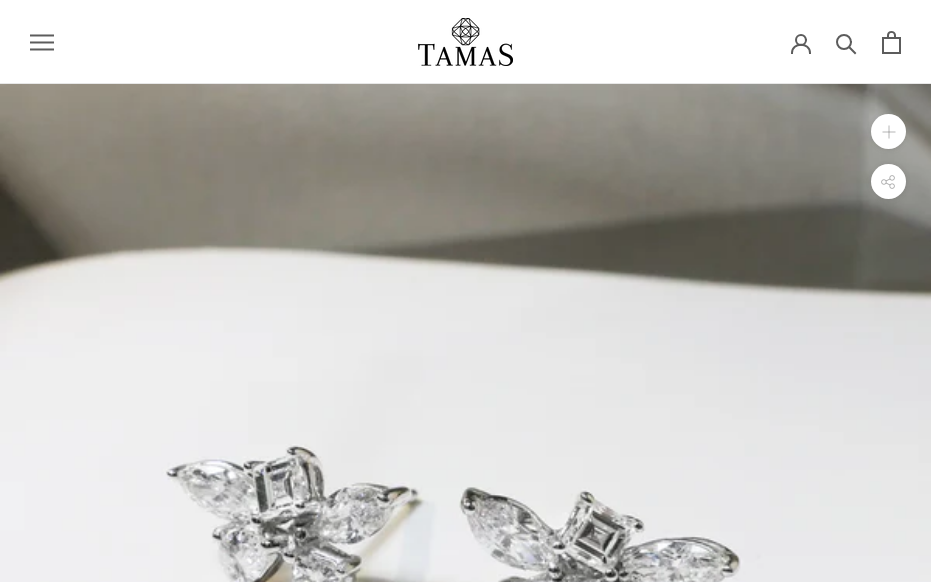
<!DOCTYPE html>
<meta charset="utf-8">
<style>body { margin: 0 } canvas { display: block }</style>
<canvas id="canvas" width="931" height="582"></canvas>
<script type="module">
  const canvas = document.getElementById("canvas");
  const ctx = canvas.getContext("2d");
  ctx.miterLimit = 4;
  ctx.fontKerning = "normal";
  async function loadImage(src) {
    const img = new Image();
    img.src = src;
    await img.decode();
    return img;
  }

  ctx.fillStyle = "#ffffff";
  ctx.fillRect(0, 0, 931, 582);
  ctx.fillStyle = "#e7e7e7";
  ctx.fillRect(0, 83, 931, 1);
  ctx.drawImage(await loadImage("img1.png"), 30, 34, 24, 17);
  ctx.drawImage(await loadImage("img2.png"), 418, 18, 95, 48);
  ctx.beginPath();
  ctx.moveTo(792, 53);
  ctx.bezierCurveTo(792, 42, 810, 42, 810, 53);
  ctx.strokeStyle = "#5c5c5c";
  ctx.lineWidth = 2;
  ctx.lineCap = "square";
  ctx.stroke();
  ctx.beginPath();
  ctx.arc(801, 40, 5, 0, Math.PI * 2);
  ctx.stroke();
  ctx.beginPath();
  ctx.moveTo(855, 53);
  ctx.lineTo(849.5, 47.5);
  ctx.stroke();
  ctx.beginPath();
  ctx.arc(844, 42, 7, 0, Math.PI * 2);
  ctx.stroke();
  ctx.drawImage(await loadImage("img3.png"), 882, 31, 19, 23);
  ctx.drawImage(await loadImage("img4.png"), 0, 84, 931, 498);
  ctx.fillStyle = "rgba(54, 54, 54, 0.15)";
  ctx.filter = "blur(2.5px)";
  ctx.beginPath();
  ctx.roundRect(871, 115, 35, 35, 17.5);
  ctx.fill();
  ctx.filter = "none";
  ctx.fillStyle = "#ffffff";
  ctx.beginPath();
  ctx.arc(888.5, 131.5, 17.5, 0, Math.PI * 2);
  ctx.fill();
  ctx.beginPath();
  ctx.moveTo(889, 126);
  ctx.lineTo(889, 138);
  ctx.strokeStyle = "#aeaeae";
  ctx.lineWidth = 0.9;
  ctx.stroke();
  ctx.beginPath();
  ctx.moveTo(883, 132);
  ctx.lineTo(895, 132);
  ctx.strokeStyle = "rgba(92, 92, 92, 0.5)";
  ctx.stroke();
  ctx.fillStyle = "rgba(54, 54, 54, 0.15)";
  ctx.filter = "blur(2.5px)";
  ctx.beginPath();
  ctx.roundRect(871, 165, 35, 35, 17.5);
  ctx.fill();
  ctx.filter = "none";
  ctx.fillStyle = "#ffffff";
  ctx.beginPath();
  ctx.arc(888.5, 181.5, 17.5, 0, Math.PI * 2);
  ctx.fill();
  ctx.drawImage(await loadImage("img5.png"), 881, 175, 14, 14);
</script>
